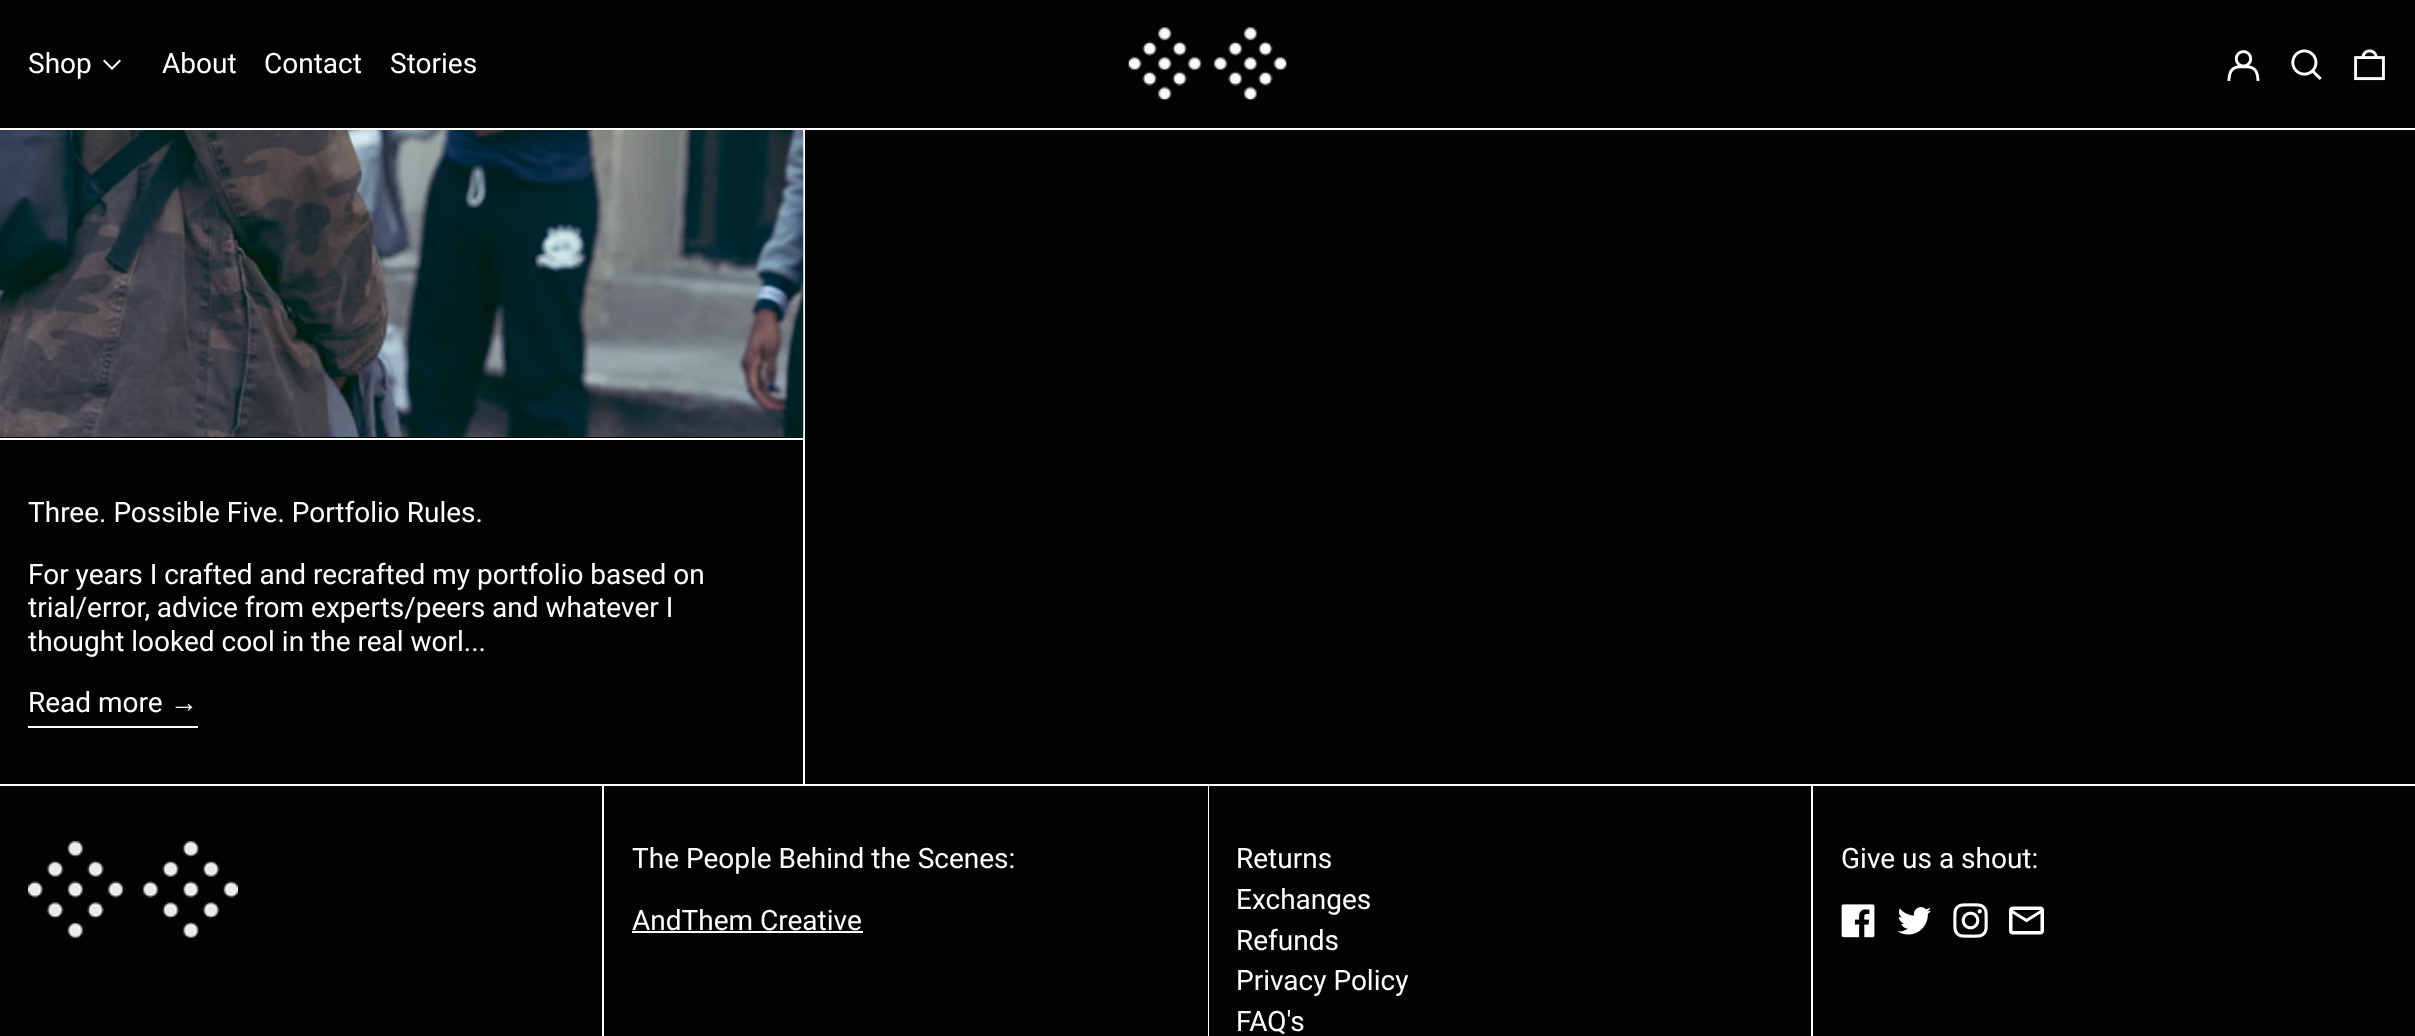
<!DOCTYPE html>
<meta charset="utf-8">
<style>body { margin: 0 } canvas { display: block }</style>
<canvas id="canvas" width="2415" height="1036"></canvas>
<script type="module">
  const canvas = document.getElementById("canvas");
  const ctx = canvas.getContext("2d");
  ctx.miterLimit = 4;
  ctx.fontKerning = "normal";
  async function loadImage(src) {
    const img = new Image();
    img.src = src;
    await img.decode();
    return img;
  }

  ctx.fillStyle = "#ffffff";
  ctx.fillRect(0, 0, 2415, 1036);
  ctx.fillStyle = "#030303";
  ctx.fillRect(0, 0, 2415, 128);
  ctx.font = "28px Roboto";
  ctx.fillStyle = "#ffffff";
  ctx.fillText("Shop", 28, 73);
  ctx.beginPath();
  ctx.moveTo(112, 70);
  ctx.lineTo(103, 61);
  ctx.lineTo(104.5, 59.5);
  ctx.lineTo(112, 67);
  ctx.lineTo(119.5, 59.5);
  ctx.lineTo(121, 61);
  ctx.closePath();
  ctx.fill("evenodd");
  ctx.fillText("About", 162, 73);
  ctx.fillText("Contact", 264, 73);
  ctx.fillText("Stories", 390, 73);
  ctx.drawImage(await loadImage("img1.png"), 1128, 27, 159, 73);
  ctx.drawImage(await loadImage("img2.png"), 2227, 50, 33, 31);
  ctx.drawImage(await loadImage("img3.png"), 2291, 49, 31, 31);
  ctx.drawImage(await loadImage("img4.png"), 2354, 49, 31, 32);
  ctx.fillStyle = "#030303";
  ctx.fillRect(0, 437, 803, 347);
  ctx.fillStyle = "#ffffff";
  ctx.fillRect(0, 438, 803, 2);
  ctx.drawImage(await loadImage("img5.png"), 0, 130, 804, 307);
  ctx.fillText("Three. Possible Five. Portfolio Rules.", 28, 522);
  ctx.fillText("For years I crafted and recrafted my portfolio based on", 28, 584);
  ctx.fillText("trial/error, advice from experts/peers and whatever I", 28, 617);
  ctx.fillText("thought looked cool in the real worl...", 28, 651);
  ctx.fillRect(28, 726, 170, 2);
  ctx.fillText("Read more", 28, 712);
  ctx.font = "28px Liberation Sans";
  ctx.fillText("→", 170, 712);
  ctx.fillStyle = "#030303";
  ctx.fillRect(805, 130, 1610, 654);
  ctx.fillRect(0, 786, 602, 250);
  ctx.drawImage(await loadImage("img6.png"), 28, 841, 210, 97);
  ctx.fillRect(604, 786, 604, 250);
  ctx.font = "28px Roboto";
  ctx.fillStyle = "#ffffff";
  ctx.fillText("The People Behind the Scenes:", 632, 868);
  ctx.fillText("AndThem Creative", 632, 930);
  ctx.fillRect(632, 931, 231, 2);
  ctx.fillStyle = "#030303";
  ctx.fillRect(1209, 786, 602, 250);
  ctx.fillStyle = "#ffffff";
  ctx.fillText("Returns", 1236, 868);
  ctx.fillText("Exchanges", 1236, 909);
  ctx.fillText("Refunds", 1236, 950);
  ctx.fillText("Privacy Policy", 1236, 990);
  ctx.fillText("FAQ's", 1236, 1031);
  ctx.fillStyle = "#030303";
  ctx.fillRect(1813, 786, 602, 250);
  ctx.fillStyle = "#ffffff";
  ctx.fillText("Give us a shout:", 1841, 868);
  ctx.drawImage(await loadImage("img7.png"), 1841, 904, 34, 34);
  ctx.drawImage(await loadImage("img8.png"), 1897, 907, 34, 28);
  ctx.drawImage(await loadImage("img9.png"), 1953, 903, 35, 35);
  ctx.drawImage(await loadImage("img10.png"), 2009, 906, 35, 29);
</script>
